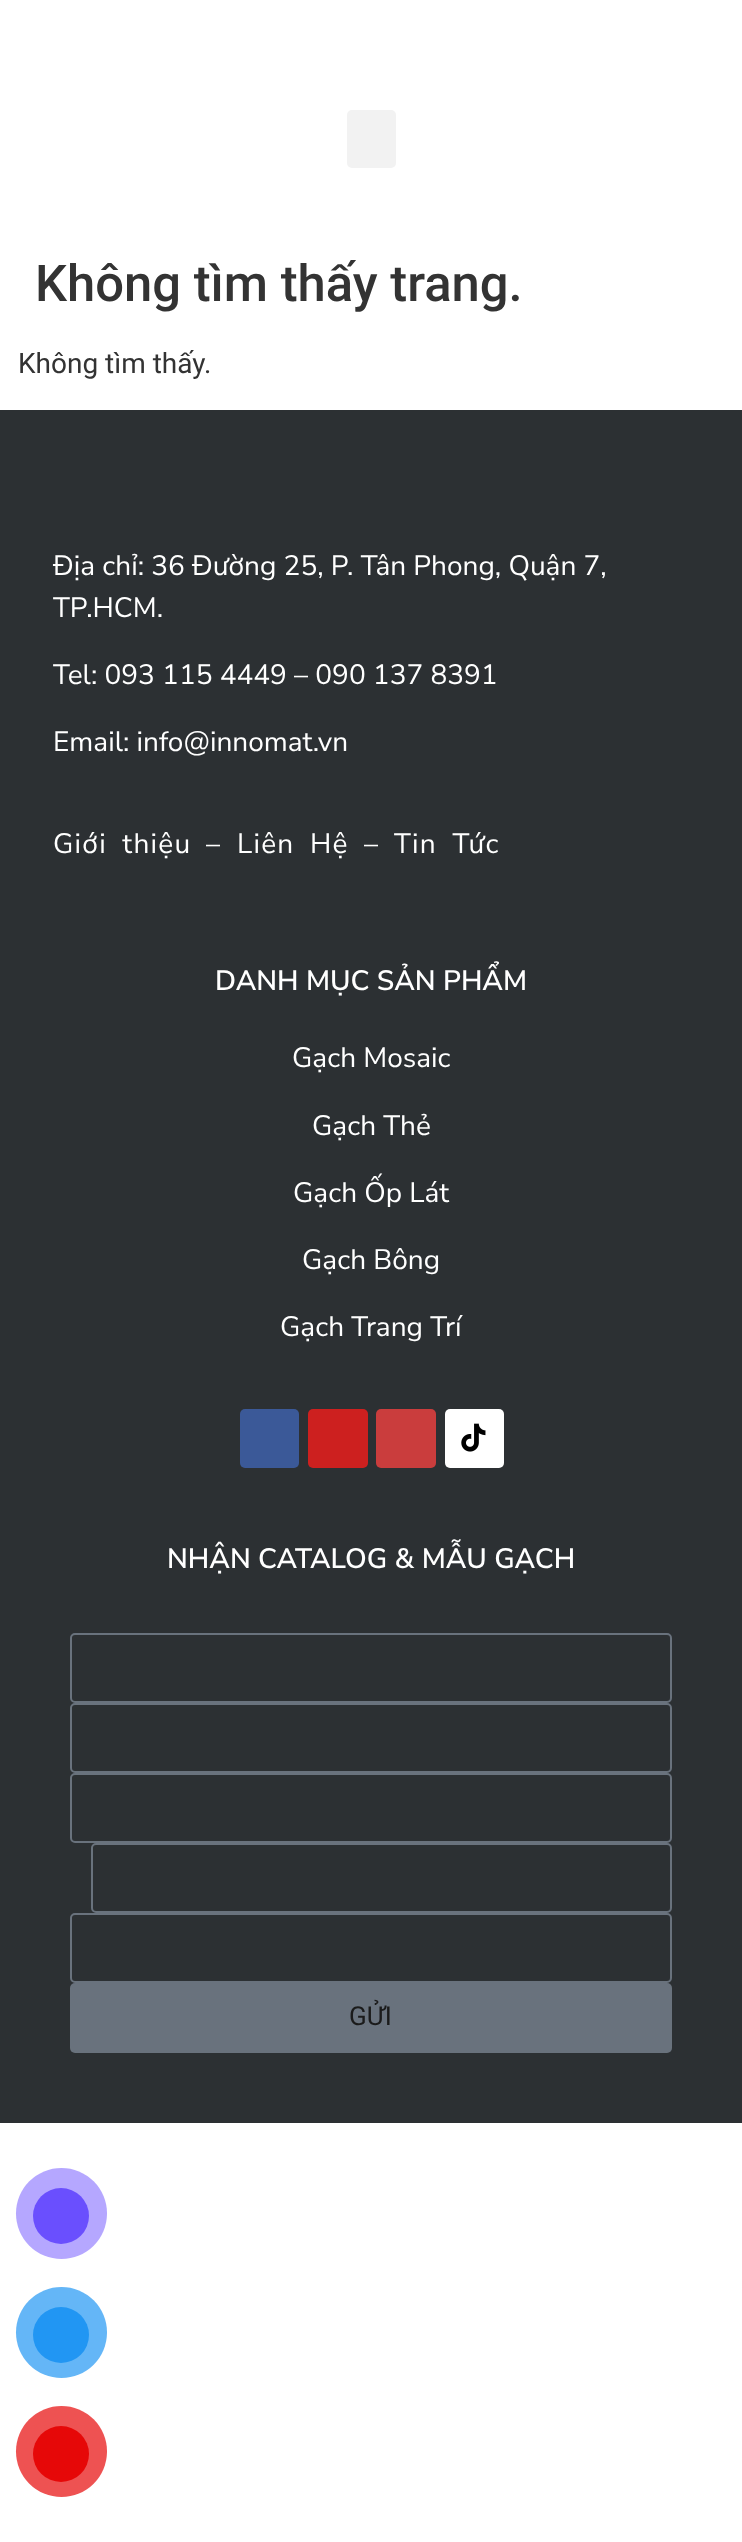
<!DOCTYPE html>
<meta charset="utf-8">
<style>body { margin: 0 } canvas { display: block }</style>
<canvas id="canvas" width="742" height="2542"></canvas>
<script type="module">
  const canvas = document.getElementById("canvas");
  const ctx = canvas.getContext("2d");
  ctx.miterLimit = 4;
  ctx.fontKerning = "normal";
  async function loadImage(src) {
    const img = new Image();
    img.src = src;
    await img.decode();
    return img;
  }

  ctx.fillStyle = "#ffffff";
  ctx.fillRect(0, 0, 742, 2542);
  ctx.fillStyle = "#f2f2f2";
  ctx.beginPath();
  ctx.roundRect(347, 110, 49, 58, 5);
  ctx.fill();
  ctx.font = "500 50.75px Roboto";
  ctx.fillStyle = "#333333";
  ctx.fillText("Không tìm thấy trang.", 35, 301);
  ctx.font = "28px Roboto";
  ctx.fillText("Không tìm thấy.", 18, 373);
  ctx.fillStyle = "#2c3033";
  ctx.fillRect(0, 410, 742, 1713);
  ctx.font = "28px Nunito Sans";
  ctx.fillStyle = "#ffffff";
  ctx.fillText("Địa chỉ: 36 Đường 25, P. Tân Phong, Quận 7,", 53, 575);
  ctx.fillText("TP.HCM.", 53, 617);
  ctx.fillText("Tel: 093 115 4449 – 090 137 8391", 53, 684);
  ctx.fillText("Email: info@innomat.vn", 53, 751);
  ctx.letterSpacing = "1.25px";
  ctx.wordSpacing = "7px";
  ctx.fillText("Giới thiệu", 53, 853);
  ctx.wordSpacing = "0px";
  ctx.fillText("–", 206, 853);
  ctx.wordSpacing = "7px";
  ctx.fillText("Liên Hệ", 237, 853);
  ctx.wordSpacing = "0px";
  ctx.fillText("–", 364, 853);
  ctx.wordSpacing = "7px";
  ctx.fillText("Tin Tức", 394, 853);
  ctx.letterSpacing = "0px";
  ctx.wordSpacing = "0px";
  ctx.font = "600 28px Nunito Sans";
  ctx.fillText("DANH MỤC SẢN PHẨM", 215, 990);
  ctx.font = "28px Nunito Sans";
  ctx.fillText("Gạch Mosaic", 292, 1067);
  ctx.fillText("Gạch Thẻ", 312, 1135);
  ctx.fillText("Gạch Ốp Lát", 293, 1202);
  ctx.fillText("Gạch Bông", 302, 1269);
  ctx.fillText("Gạch Trang Trí", 280, 1336);
  ctx.fillStyle = "#3b5998";
  ctx.beginPath();
  ctx.roundRect(240, 1409, 59, 59, 5);
  ctx.fill();
  ctx.fillStyle = "#cd201f";
  ctx.beginPath();
  ctx.roundRect(308, 1409, 60, 59, 5);
  ctx.fill();
  ctx.fillStyle = "#ca3d3d";
  ctx.beginPath();
  ctx.roundRect(376, 1409, 60, 59, 5);
  ctx.fill();
  ctx.fillStyle = "#ffffff";
  ctx.beginPath();
  ctx.roundRect(445, 1409, 59, 59, 5);
  ctx.fill();
  ctx.drawImage(await loadImage("img1.png"), 461, 1423, 25, 29);
  ctx.font = "600 28px Nunito Sans";
  ctx.fillText("NHẬN CATALOG & MẪU GẠCH", 167, 1568);
  ctx.beginPath();
  ctx.roundRect(71, 1634, 600, 68, 4);
  ctx.strokeStyle = "#69727d";
  ctx.lineWidth = 2;
  ctx.stroke();
  ctx.beginPath();
  ctx.roundRect(71, 1704, 600, 68, 4);
  ctx.stroke();
  ctx.beginPath();
  ctx.roundRect(71, 1774, 600, 68, 4);
  ctx.stroke();
  ctx.beginPath();
  ctx.roundRect(92, 1844, 579, 68, 4);
  ctx.stroke();
  ctx.beginPath();
  ctx.roundRect(71, 1914, 600, 68, 4);
  ctx.stroke();
  ctx.fillStyle = "#69727d";
  ctx.beginPath();
  ctx.roundRect(70, 1983, 602, 70, 5);
  ctx.fill();
  ctx.font = "26px Roboto";
  ctx.fillStyle = "#1b1b1b";
  ctx.fillText("GỬI", 349, 2025);
  ctx.fillStyle = "#b5a7ff";
  ctx.beginPath();
  ctx.arc(61.5, 2213.5, 45.5, 0, Math.PI * 2);
  ctx.fill();
  ctx.fillStyle = "#6a4ffe";
  ctx.beginPath();
  ctx.arc(61, 2216, 28, 0, Math.PI * 2);
  ctx.fill();
  ctx.fillStyle = "#64b6f7";
  ctx.beginPath();
  ctx.arc(61.5, 2332.5, 45.5, 0, Math.PI * 2);
  ctx.fill();
  ctx.fillStyle = "#2196f3";
  ctx.beginPath();
  ctx.arc(61, 2335, 28, 0, Math.PI * 2);
  ctx.fill();
  ctx.fillStyle = "#ee5252";
  ctx.beginPath();
  ctx.arc(61.5, 2451.5, 45.5, 0, Math.PI * 2);
  ctx.fill();
  ctx.fillStyle = "#e60808";
  ctx.beginPath();
  ctx.arc(61, 2454, 28, 0, Math.PI * 2);
  ctx.fill();
</script>
